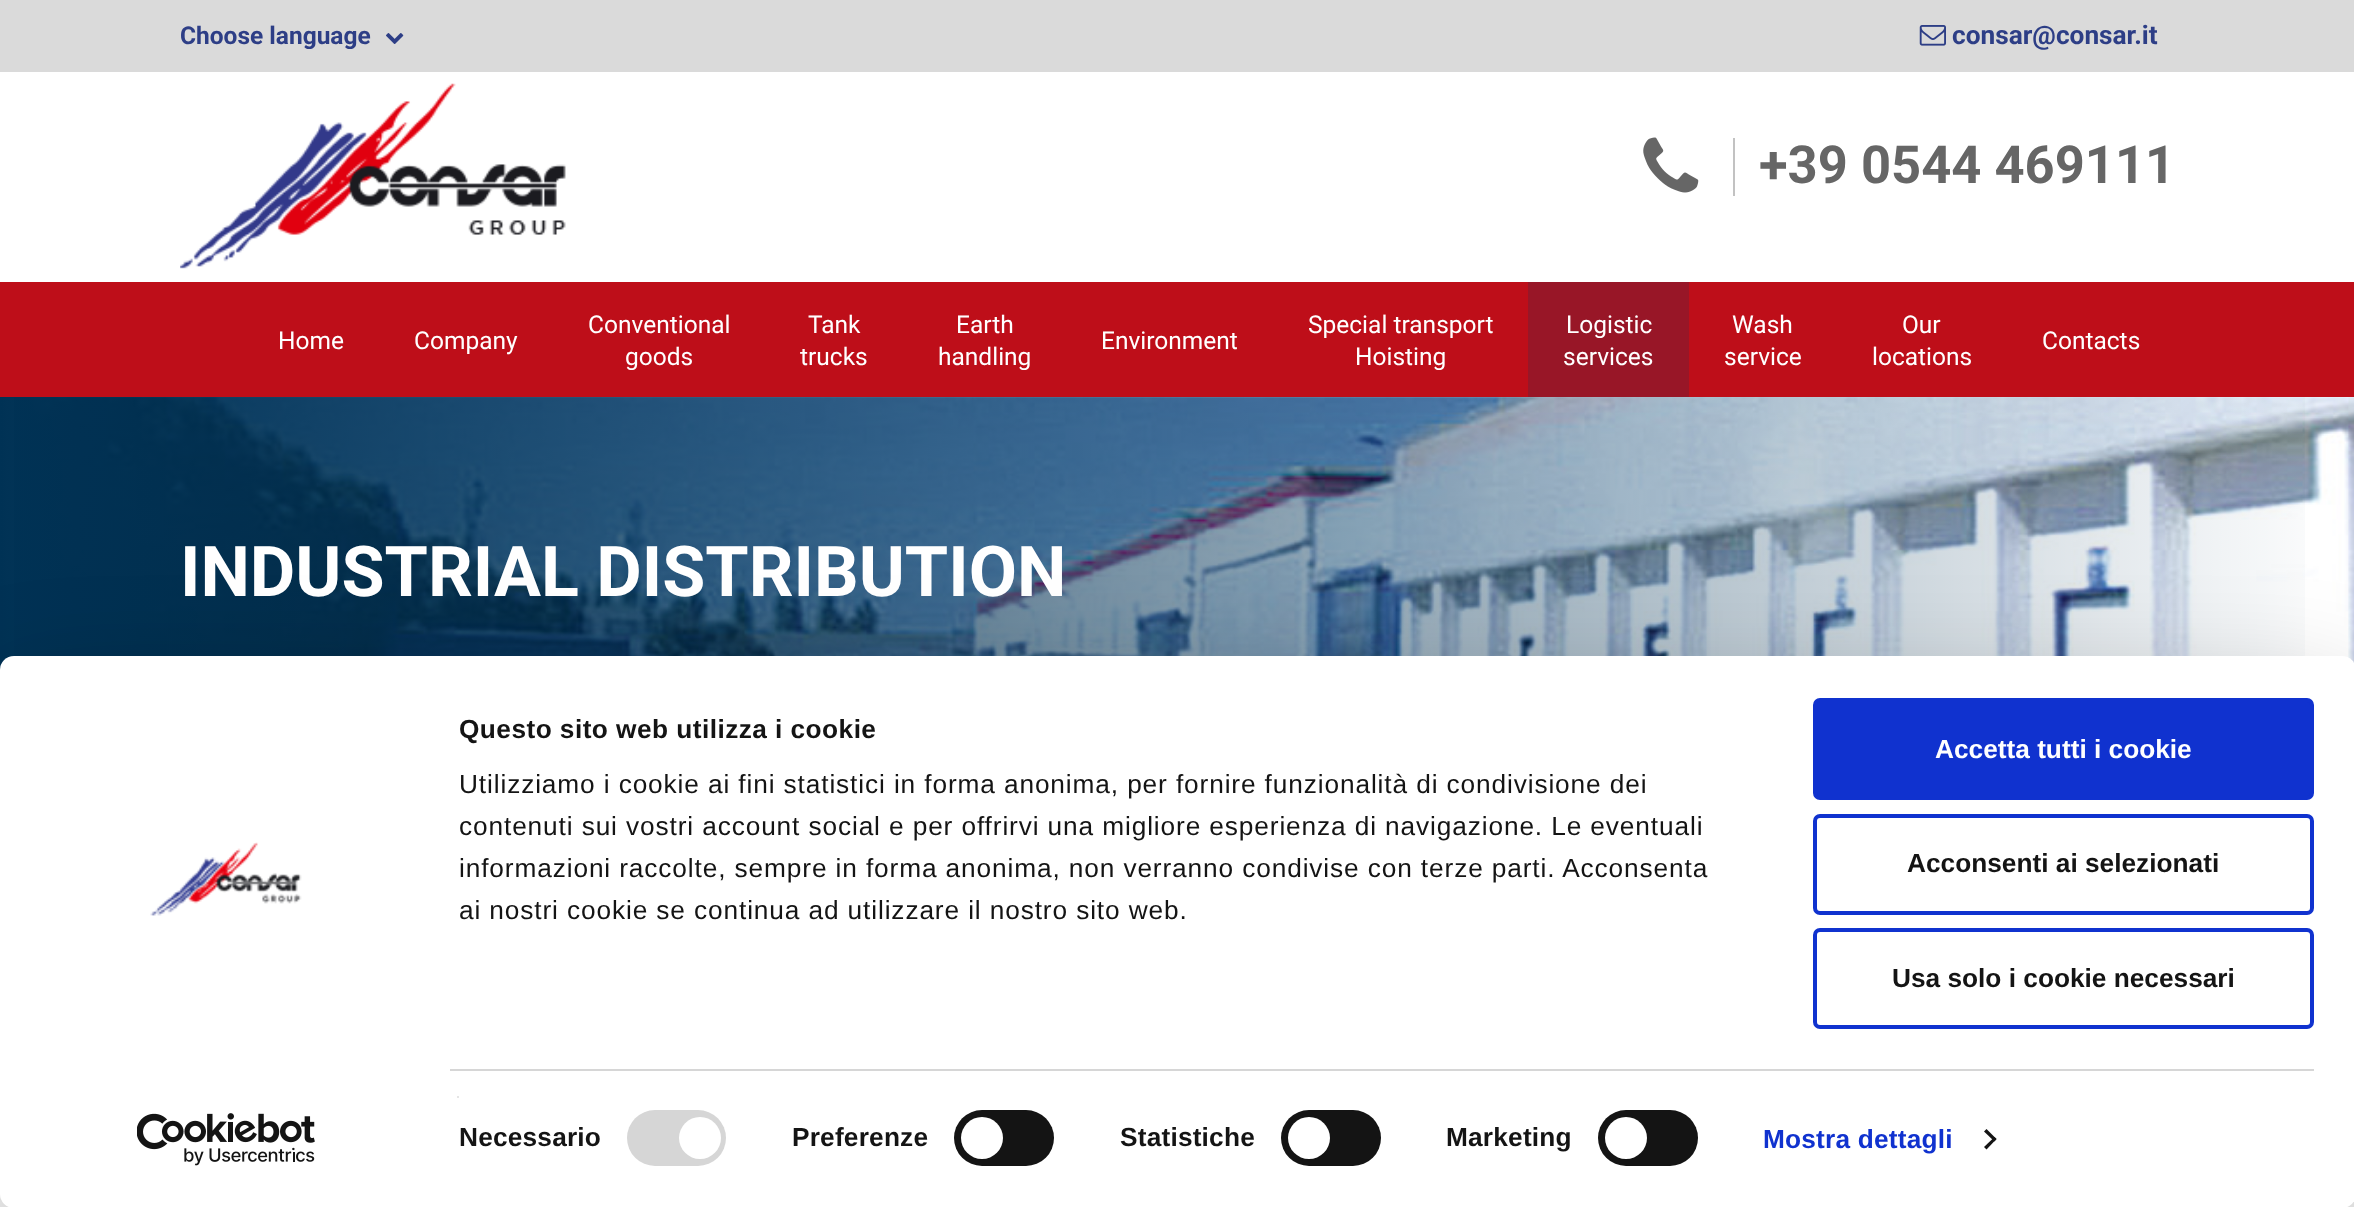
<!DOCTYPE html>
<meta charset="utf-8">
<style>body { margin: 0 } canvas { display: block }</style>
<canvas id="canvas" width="2354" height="1207"></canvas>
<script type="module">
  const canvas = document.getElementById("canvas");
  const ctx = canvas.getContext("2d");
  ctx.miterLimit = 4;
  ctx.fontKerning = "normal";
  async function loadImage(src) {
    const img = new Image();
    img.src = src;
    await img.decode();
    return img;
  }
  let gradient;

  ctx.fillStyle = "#ffffff";
  ctx.fillRect(0, 0, 2354, 1207);
  ctx.fillStyle = "#dadada";
  ctx.fillRect(0, 0, 2354, 72);
  ctx.font = "bold 24.5px Roboto";
  ctx.fillStyle = "#2d3e86";
  ctx.fillText("Choose language", 180, 44);
  ctx.drawImage(await loadImage("img1.png"), 386, 33, 18, 11);
  ctx.drawImage(await loadImage("img2.png"), 1919, 25, 27, 21);
  ctx.font = "bold 26.25px Roboto";
  ctx.fillText("consar@consar.it", 1952, 44);
  ctx.drawImage(await loadImage("img3.png"), 180, 83, 386, 186);
  ctx.drawImage(await loadImage("img4.png"), 1643, 137, 56, 56);
  ctx.fillStyle = "#c2c2c2";
  ctx.fillRect(1733, 138, 2, 58);
  ctx.font = "bold 52.5px Roboto";
  ctx.fillStyle = "#666666";
  ctx.fillText("+39 0544 469111", 1759, 183);
  ctx.fillStyle = "#be0e19";
  ctx.fillRect(0, 282, 2354, 115);
  ctx.font = "24.5px Roboto";
  ctx.fillStyle = "#ffffff";
  ctx.fillText("Home", 278, 349);
  ctx.fillText("Company", 414, 349);
  ctx.fillText("Conventional", 588, 333);
  ctx.fillText("goods", 625, 365);
  ctx.fillText("Tank", 808, 333);
  ctx.fillText("trucks", 800, 365);
  ctx.fillText("Earth", 956, 333);
  ctx.fillText("handling", 938, 365);
  ctx.fillText("Environment", 1101, 349);
  ctx.fillText("Special transport", 1308, 333);
  ctx.fillText("Hoisting", 1355, 365);
  ctx.fillStyle = "#981627";
  ctx.fillRect(1528, 282, 161, 115);
  ctx.fillStyle = "#ffffff";
  ctx.fillText("Logistic", 1566, 333);
  ctx.fillText("services", 1563, 365);
  ctx.fillText("Wash", 1732, 333);
  ctx.fillText("service", 1724, 365);
  ctx.fillText("Our", 1902, 333);
  ctx.fillText("locations", 1872, 365);
  ctx.fillText("Contacts", 2042, 349);
  ctx.drawImage(await loadImage("img5.png"), 14, 397, 2340, 266);
  gradient = ctx.createLinearGradient(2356, 680, 0, 680);
  gradient.addColorStop(0, "rgba(0, 50, 85, 0)");
  gradient.addColorStop(1, "#003255");
  ctx.fillStyle = gradient;
  ctx.fillRect(0, 397, 2305, 273);
  ctx.font = "bold 70px Roboto";
  ctx.fillStyle = "#ffffff";
  ctx.fillText("INDUSTRIAL DISTRIBUTION", 180, 596);
  ctx.fillStyle = "rgba(0, 0, 0, 0.3)";
  ctx.filter = "blur(61px)";
  ctx.beginPath();
  ctx.roundRect(0, 709, 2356, 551, 14);
  ctx.fill();
  ctx.filter = "none";
  ctx.fillStyle = "#ffffff";
  ctx.beginPath();
  ctx.roundRect(0, 656, 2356, 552, 14);
  ctx.fill();
  ctx.drawImage(await loadImage("img6.png"), 150, 842, 152, 74);
  ctx.drawImage(await loadImage("img7.png"), 137, 1113, 178, 53);
  ctx.letterSpacing = "0.45px";
  ctx.font = "bold 26.25px Liberation Sans";
  ctx.fillStyle = "#141414";
  ctx.fillText("Questo sito web utilizza i cookie", 459, 738);
  ctx.letterSpacing = "0.88px";
  ctx.font = "26.25px Liberation Sans";
  ctx.fillText("Utilizziamo i cookie ai fini statistici in forma anonima, per fornire funzionalità di condivisione dei", 459, 793);
  ctx.fillText("contenuti sui vostri account social e per offrirvi una migliore esperienza di navigazione. Le eventuali", 459, 835);
  ctx.fillText("informazioni raccolte, sempre in forma anonima, non verranno condivise con terze parti. Acconsenta", 459, 877);
  ctx.fillText("ai nostri cookie se continua ad utilizzare il nostro sito web.", 459, 919);
  ctx.fillStyle = "#d6d6d6";
  ctx.fillRect(450, 1069, 1864, 2);
  ctx.fillStyle = "#e5e5e5";
  ctx.fillRect(457, 1096, 2, 2);
  ctx.letterSpacing = "0.2px";
  ctx.font = "bold 26.25px Liberation Sans";
  ctx.fillStyle = "#141414";
  ctx.fillText("Necessario", 459, 1146);
  ctx.fillStyle = "#d6d6d6";
  ctx.beginPath();
  ctx.roundRect(627, 1110, 99, 56, 28);
  ctx.fill();
  ctx.fillStyle = "#ffffff";
  ctx.beginPath();
  ctx.arc(700, 1138, 21, 0, Math.PI * 2);
  ctx.fill();
  ctx.fillStyle = "#141414";
  ctx.fillText("Preferenze", 792, 1146);
  ctx.beginPath();
  ctx.roundRect(954, 1110, 100, 56, 28);
  ctx.fill();
  ctx.fillStyle = "#ffffff";
  ctx.beginPath();
  ctx.arc(982, 1138, 21, 0, Math.PI * 2);
  ctx.fill();
  ctx.fillStyle = "#141414";
  ctx.fillText("Statistiche", 1120, 1146);
  ctx.beginPath();
  ctx.roundRect(1281, 1110, 100, 56, 28);
  ctx.fill();
  ctx.fillStyle = "#ffffff";
  ctx.beginPath();
  ctx.arc(1309, 1138, 21, 0, Math.PI * 2);
  ctx.fill();
  ctx.fillStyle = "#141414";
  ctx.fillText("Marketing", 1446, 1146);
  ctx.beginPath();
  ctx.roundRect(1598, 1110, 100, 56, 28);
  ctx.fill();
  ctx.fillStyle = "#ffffff";
  ctx.beginPath();
  ctx.arc(1626, 1138, 21, 0, Math.PI * 2);
  ctx.fill();
  ctx.fillStyle = "#1032cf";
  ctx.fillText("Mostra dettagli", 1763, 1148);
  ctx.fillStyle = "#141414";
  ctx.beginPath();
  ctx.moveTo(1986.5, 1129);
  ctx.lineTo(1996.5, 1139);
  ctx.lineTo(1994.5, 1141.5);
  ctx.lineTo(1984, 1131.5);
  ctx.closePath();
  ctx.fill();
  ctx.beginPath();
  ctx.moveTo(1994.5, 1137);
  ctx.lineTo(1996.5, 1139);
  ctx.lineTo(1986.5, 1149.5);
  ctx.lineTo(1984, 1147);
  ctx.closePath();
  ctx.fill();
  ctx.fillStyle = "#1032cf";
  ctx.beginPath();
  ctx.roundRect(1815, 700, 497, 98, 5);
  ctx.fill();
  ctx.strokeStyle = "#1032cf";
  ctx.lineWidth = 4;
  ctx.stroke();
  ctx.letterSpacing = "0px";
  ctx.fillStyle = "#ffffff";
  ctx.fillText("Accetta tutti i cookie", 1935, 758);
  ctx.beginPath();
  ctx.roundRect(1815, 816, 497, 97, 5);
  ctx.stroke();
  ctx.fillStyle = "#141414";
  ctx.fillText("Acconsenti ai selezionati", 1907, 872);
  ctx.beginPath();
  ctx.roundRect(1815, 930, 497, 97, 5);
  ctx.stroke();
  ctx.fillText("Usa solo i cookie necessari", 1892, 987);
</script>
